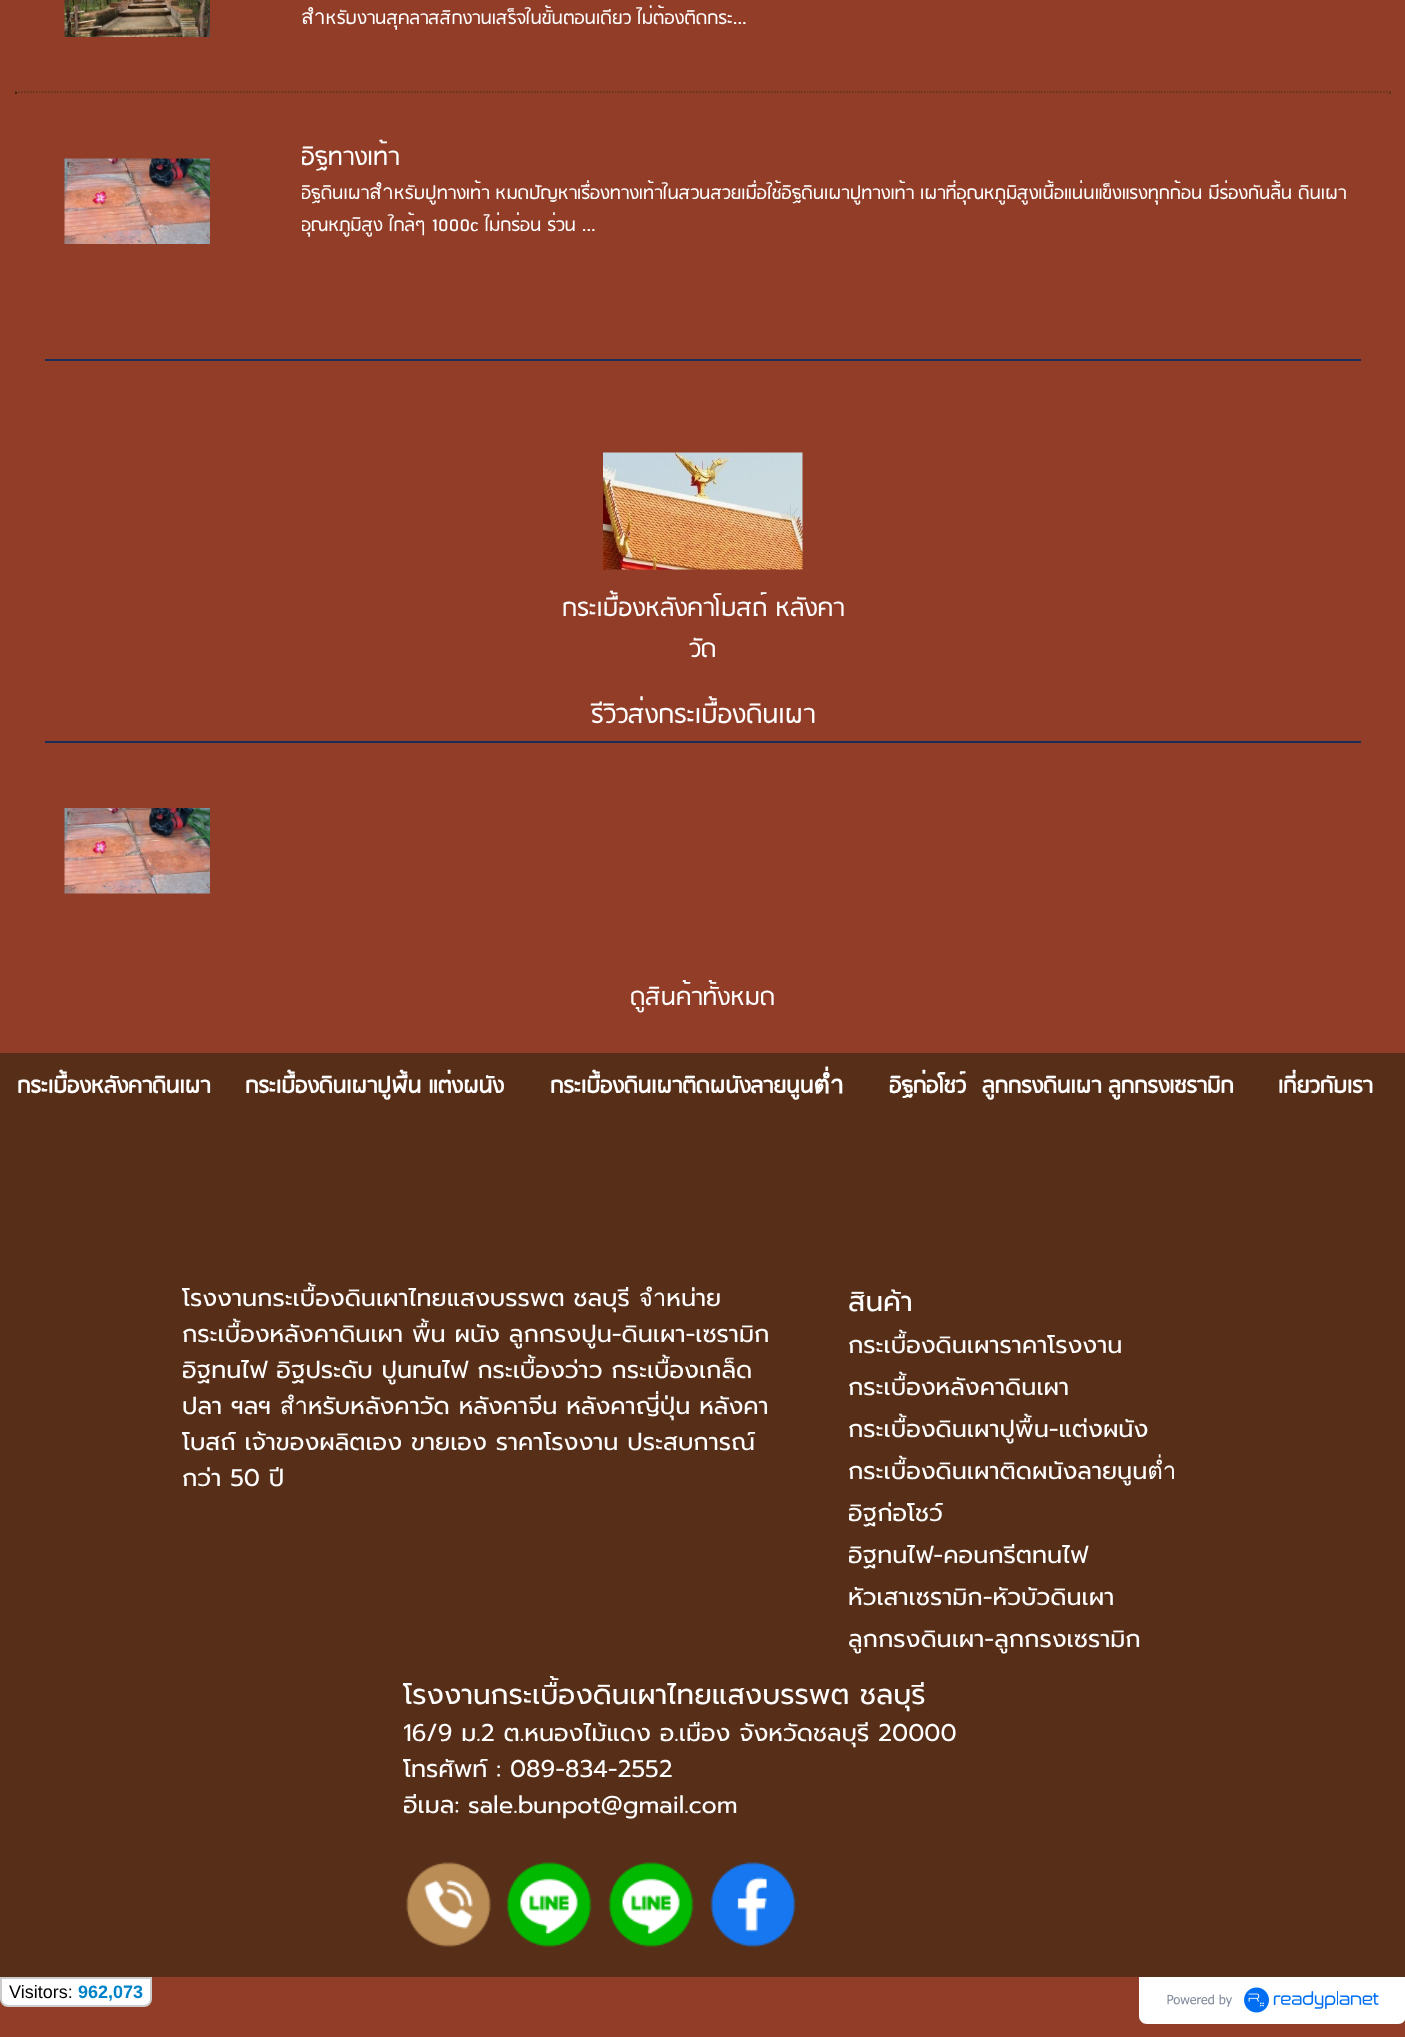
<!DOCTYPE html>
<meta charset="utf-8">
<style>body { margin: 0 } canvas { display: block }</style>
<canvas id="canvas" width="1405" height="2037"></canvas>
<script type="module">
  const canvas = document.getElementById("canvas");
  const ctx = canvas.getContext("2d");
  ctx.miterLimit = 4;
  ctx.fontKerning = "normal";
  async function loadImage(src) {
    const img = new Image();
    img.src = src;
    await img.decode();
    return img;
  }

  ctx.fillStyle = "#913d28";
  ctx.fillRect(0, 0, 1405, 2037);
  ctx.drawImage(await loadImage("img1.png"), 64, 0, 146, 37);
  ctx.save();
  ctx.beginPath();
  ctx.rect(302, 0, 1053, 35);
  ctx.clip();
  ctx.font = "21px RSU";
  ctx.fillStyle = "#ffffff";
  ctx.fillText("สำหรับงานสุคลาสสิกงานเสร็จในขั้นตอนเดียว ไม่ต้องติดกระ...", 301, 24);
  ctx.restore();
  ctx.beginPath();
  ctx.moveTo(15, 92);
  ctx.lineTo(1390.5, 92);
  ctx.strokeStyle = "#573619";
  ctx.lineWidth = 1.5;
  ctx.setLineDash([1.5, 1.5]);
  ctx.stroke();
  ctx.fillStyle = "#573619";
  ctx.fillRect(1389, 92, 2, 2);
  ctx.fillStyle = "#3a2411";
  ctx.fillRect(15, 92, 2, 2);
  ctx.drawImage(await loadImage("img2.png"), 64, 158, 146, 86);
  ctx.save();
  ctx.beginPath();
  ctx.rect(302, 123, 1053, 119);
  ctx.clip();
  ctx.font = "28.5px RSU";
  ctx.fillStyle = "#ffffff";
  ctx.fillText("อิฐทางเท้า", 301, 165);
  ctx.font = "21px RSU";
  ctx.fillText("อิฐดินเผาสำหรับปูทางเท้า หมดปัญหาเรื่องทางเท้าในสวนสวยเมื่อใช้อิฐดินเผาปูทางเท้า เผาที่อุณหภูมิสูงเนื้อแน่นแข็งแรงทุกก้อน มีร่องกันลื้น ดินเผา", 301, 199);
  ctx.fillText("อุณหภูมิสูง ใกล้ๆ 1000c ไม่กร่อน ร่วน ...", 301, 231);
  ctx.restore();
  ctx.fillStyle = "#192d59";
  ctx.fillRect(45, 359, 1316, 2);
  ctx.drawImage(await loadImage("img3.png"), 603, 452, 200, 118);
  ctx.font = "28.5px RSU";
  ctx.fillStyle = "#ffffff";
  ctx.fillText("กระเบื้องหลังคาโบสถ์ หลังคา", 562, 616);
  ctx.fillText("วัด", 689, 657);
  ctx.font = "30px RSU";
  ctx.fillText("รีวิวส่งกระเบื้องดินเผา", 591, 723);
  ctx.fillStyle = "#192d59";
  ctx.fillRect(45, 741, 1316, 2);
  ctx.drawImage(await loadImage("img4.png"), 64, 808, 146, 86);
  ctx.font = "28px RSU";
  ctx.fillStyle = "#ffffff";
  ctx.fillText("ดูสินค้าทั้งหมด", 630, 1005);
  ctx.fillStyle = "#572f19";
  ctx.fillRect(0, 1053, 1405, 924);
  ctx.font = "bold 25.25px RSU";
  ctx.fillStyle = "#ffffff";
  ctx.fillText("กระเบื้องหลังคาดินเผา", 17, 1093);
  ctx.fillText("กระเบื้องดินเผาปูพื้น แต่งผนัง", 245, 1093);
  ctx.fillText("กระเบื้องดินเผาติดผนังลายนูนต่ำ", 550, 1093);
  ctx.fillText("อิฐก่อโชว์", 889, 1093);
  ctx.fillText("ลูกกรงดินเผา ลูกกรงเซรามิก", 982, 1093);
  ctx.fillText("เกี่ยวกับเรา", 1278, 1093);
  ctx.font = "24px Prompt";
  ctx.fillText("โรงงานกระเบื้องดินเผาไทยแสงบรรพต ชลบุรี จำหน่าย", 182, 1306);
  ctx.fillText("กระเบื้องหลังคาดินเผา พื้น ผนัง ลูกกรงปูน-ดินเผา-เซรามิก", 182, 1342);
  ctx.fillText("อิฐทนไฟ อิฐประดับ ปูนทนไฟ กระเบื้องว่าว กระเบื้องเกล็ด", 182, 1378);
  ctx.fillText("ปลา ฯลฯ สำหรับหลังคาวัด หลังคาจีน หลังคาญี่ปุ่น หลังคา", 182, 1414);
  ctx.fillText("โบสถ์ เจ้าของผลิตเอง ขายเอง ราคาโรงงาน ประสบการณ์", 182, 1450);
  ctx.fillText("กว่า 50 ปี", 182, 1486);
  ctx.font = "28px Prompt";
  ctx.fillText("สินค้า", 848, 1311);
  ctx.font = "24px Prompt";
  ctx.fillText("กระเบื้องดินเผาราคาโรงงาน", 848, 1353);
  ctx.fillText("กระเบื้องหลังคาดินเผา", 848, 1395);
  ctx.fillText("กระเบื้องดินเผาปูพื้น-แต่งผนัง", 848, 1437);
  ctx.fillText("กระเบื้องดินเผาติดผนังลายนูนต่ำ", 848, 1479);
  ctx.fillText("อิฐก่อโชว์", 848, 1521);
  ctx.fillText("อิฐทนไฟ-คอนกรีตทนไฟ", 848, 1563);
  ctx.fillText("หัวเสาเซรามิก-หัวบัวดินเผา", 848, 1605);
  ctx.fillText("ลูกกรงดินเผา-ลูกกรงเซรามิก", 848, 1647);
  ctx.font = "28px Prompt";
  ctx.fillText("โรงงานกระเบื้องดินเผาไทยแสงบรรพต ชลบุรี", 403, 1704);
  ctx.font = "24px Prompt";
  ctx.fillText("16/9 ม.2 ต.หนองไม้แดง อ.เมือง จังหวัดชลบุรี 20000", 403, 1741);
  ctx.fillText("โทรศัพท์ : 089-834-2552", 403, 1777);
  ctx.fillText("อีเมล: sale.bunpot@gmail.com", 403, 1813);
  ctx.drawImage(await loadImage("img5.png"), 406, 1862, 85, 85);
  ctx.drawImage(await loadImage("img6.png"), 506, 1862, 86, 85);
  ctx.drawImage(await loadImage("img7.png"), 608, 1862, 86, 85);
  ctx.drawImage(await loadImage("img8.png"), 710, 1862, 86, 85);
  ctx.beginPath();
  ctx.roundRect(1, 1978, 150, 28, [0, 0, 7, 7]);
  ctx.fill();
  ctx.strokeStyle = "#cccccc";
  ctx.lineWidth = 2;
  ctx.setLineDash([]);
  ctx.stroke();
  ctx.font = "18px Liberation Sans";
  ctx.fillStyle = "#000000";
  ctx.fillText("Visitors:", 9, 1998);
  ctx.font = "bold 18px Liberation Sans";
  ctx.fillStyle = "#0081c8";
  ctx.fillText("962,073", 78, 1998);
  ctx.fillStyle = "#ffffff";
  ctx.beginPath();
  ctx.moveTo(1139, 1977);
  ctx.lineTo(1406, 1977);
  ctx.lineTo(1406, 2016);
  ctx.bezierCurveTo(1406, 2020.5, 1402.5, 2024, 1398, 2024);
  ctx.lineTo(1147, 2024);
  ctx.bezierCurveTo(1142.5, 2024, 1139, 2020.5, 1139, 2016);
  ctx.closePath();
  ctx.fill();
  ctx.drawImage(await loadImage("img9.png"), 1167, 1987, 212, 26);
</script>
